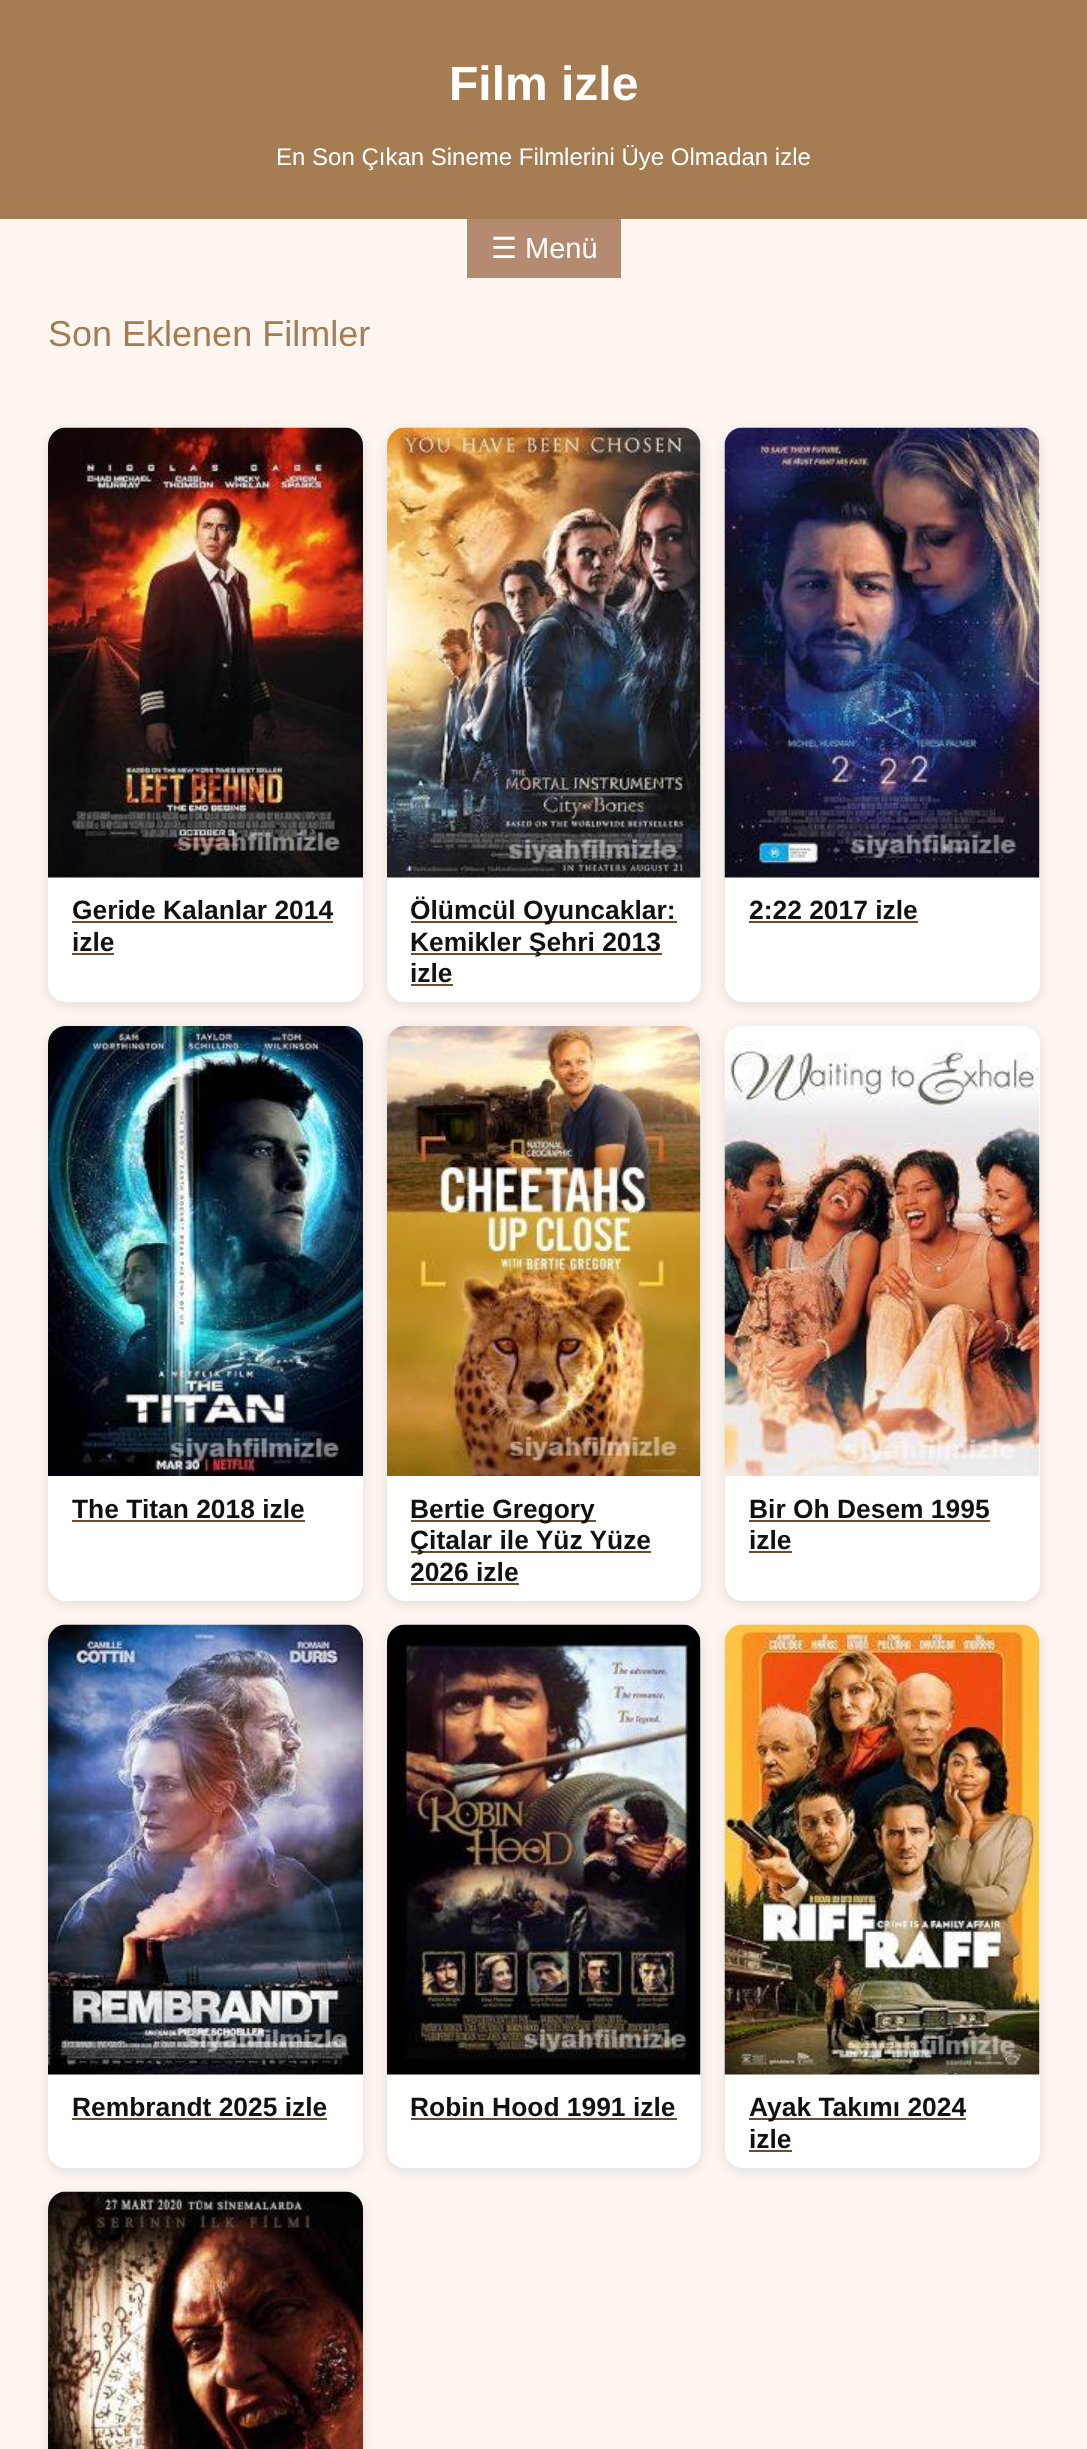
<!DOCTYPE html>
<meta charset="utf-8">
<style>body { margin: 0 } canvas { display: block }</style>
<canvas id="canvas" width="1087" height="2449"></canvas>
<script type="module">
  const canvas = document.getElementById("canvas");
  const ctx = canvas.getContext("2d");
  ctx.miterLimit = 4;
  ctx.fontKerning = "normal";
  async function loadImage(src) {
    const img = new Image();
    img.src = src;
    await img.decode();
    return img;
  }

  ctx.fillStyle = "#fdf6f0";
  ctx.fillRect(0, 0, 1087, 2449);
  ctx.fillStyle = "#a67c52";
  ctx.fillRect(0, 0, 1087, 219);
  ctx.font = "bold 48px Liberation Sans";
  ctx.fillStyle = "#ffffff";
  ctx.fillText("Film izle", 449, 100);
  ctx.font = "24px Liberation Sans";
  ctx.fillText("En Son Çıkan Sineme Filmlerini Üye Olmadan izle", 276, 165);
  ctx.fillStyle = "#b48a70";
  ctx.fillRect(467, 219, 154, 59);
  ctx.font = "29px DejaVu Sans";
  ctx.fillStyle = "#ffffff";
  ctx.fillText("☰", 491, 258);
  ctx.font = "29px Liberation Sans";
  ctx.fillText("Menü", 525, 258);
  ctx.font = "36px Liberation Sans";
  ctx.fillStyle = "#a67c52";
  ctx.fillText("Son Eklenen Filmler", 48, 346);
  ctx.fillStyle = "rgba(0, 0, 0, 0.1)";
  ctx.filter = "blur(6px)";
  ctx.beginPath();
  ctx.roundRect(48, 431, 315, 574, 18);
  ctx.fill();
  ctx.filter = "none";
  ctx.fillStyle = "#ffffff";
  ctx.beginPath();
  ctx.roundRect(48, 428, 315, 574, 18);
  ctx.fill();
  ctx.drawImage(await loadImage("img1.png"), 48, 427, 315, 451);
  ctx.font = "bold 26.4px Liberation Sans";
  ctx.fillStyle = "#111111";
  ctx.fillText("Geride Kalanlar 2014", 72, 919);
  ctx.fillStyle = "#6b4c2b";
  ctx.fillRect(72, 921, 261, 2);
  ctx.fillStyle = "#111111";
  ctx.fillText("izle", 72, 951);
  ctx.fillStyle = "#6b4c2b";
  ctx.fillRect(72, 953, 42, 2);
  ctx.fillStyle = "rgba(0, 0, 0, 0.1)";
  ctx.filter = "blur(6px)";
  ctx.beginPath();
  ctx.roundRect(387, 431, 314, 574, 18);
  ctx.fill();
  ctx.filter = "none";
  ctx.fillStyle = "#ffffff";
  ctx.beginPath();
  ctx.roundRect(387, 428, 314, 574, 18);
  ctx.fill();
  ctx.drawImage(await loadImage("img2.png"), 387, 427, 314, 451);
  ctx.fillStyle = "#6b4c2b";
  ctx.fillRect(411, 921, 266, 2);
  ctx.fillStyle = "#111111";
  ctx.fillText("Ölümcül Oyuncaklar:", 410, 919);
  ctx.fillStyle = "#6b4c2b";
  ctx.fillRect(411, 953, 251, 2);
  ctx.fillStyle = "#111111";
  ctx.fillText("Kemikler Şehri 2013", 410, 951);
  ctx.fillText("izle", 410, 982);
  ctx.fillStyle = "#6b4c2b";
  ctx.fillRect(411, 984, 42, 2);
  ctx.fillStyle = "rgba(0, 0, 0, 0.1)";
  ctx.filter = "blur(6px)";
  ctx.beginPath();
  ctx.roundRect(725, 431, 315, 574, 18);
  ctx.fill();
  ctx.filter = "none";
  ctx.fillStyle = "#ffffff";
  ctx.beginPath();
  ctx.roundRect(725, 428, 315, 574, 18);
  ctx.fill();
  ctx.drawImage(await loadImage("img3.png"), 724, 427, 316, 451);
  ctx.fillStyle = "#111111";
  ctx.fillText("2:22 2017 izle", 749, 919);
  ctx.fillStyle = "#6b4c2b";
  ctx.fillRect(749, 921, 169, 2);
  ctx.fillStyle = "rgba(0, 0, 0, 0.1)";
  ctx.filter = "blur(6px)";
  ctx.beginPath();
  ctx.roundRect(48, 1029, 315, 575, 18);
  ctx.fill();
  ctx.filter = "none";
  ctx.fillStyle = "#ffffff";
  ctx.beginPath();
  ctx.roundRect(48, 1026, 315, 575, 18);
  ctx.fill();
  ctx.drawImage(await loadImage("img4.png"), 48, 1026, 315, 450);
  ctx.fillStyle = "#111111";
  ctx.fillText("The Titan 2018 izle", 72, 1518);
  ctx.fillStyle = "#6b4c2b";
  ctx.fillRect(72, 1520, 233, 2);
  ctx.fillStyle = "rgba(0, 0, 0, 0.1)";
  ctx.filter = "blur(6px)";
  ctx.beginPath();
  ctx.roundRect(387, 1029, 314, 575, 18);
  ctx.fill();
  ctx.filter = "none";
  ctx.fillStyle = "#ffffff";
  ctx.beginPath();
  ctx.roundRect(387, 1026, 314, 575, 18);
  ctx.fill();
  ctx.drawImage(await loadImage("img5.png"), 387, 1026, 314, 450);
  ctx.fillStyle = "#6b4c2b";
  ctx.fillRect(411, 1520, 185, 2);
  ctx.fillStyle = "#111111";
  ctx.fillText("Bertie Gregory", 410, 1518);
  ctx.fillStyle = "#6b4c2b";
  ctx.fillRect(411, 1551, 240, 2);
  ctx.fillStyle = "#111111";
  ctx.fillText("Çitalar ile Yüz Yüze", 410, 1549);
  ctx.fillText("2026 izle", 410, 1581);
  ctx.fillStyle = "#6b4c2b";
  ctx.fillRect(411, 1583, 108, 2);
  ctx.fillStyle = "rgba(0, 0, 0, 0.1)";
  ctx.filter = "blur(6px)";
  ctx.beginPath();
  ctx.roundRect(725, 1029, 315, 575, 18);
  ctx.fill();
  ctx.filter = "none";
  ctx.fillStyle = "#ffffff";
  ctx.beginPath();
  ctx.roundRect(725, 1026, 315, 575, 18);
  ctx.fill();
  ctx.drawImage(await loadImage("img6.png"), 724, 1026, 316, 450);
  ctx.fillStyle = "#111111";
  ctx.fillText("Bir Oh Desem 1995", 749, 1518);
  ctx.fillStyle = "#6b4c2b";
  ctx.fillRect(749, 1520, 241, 2);
  ctx.fillStyle = "#111111";
  ctx.fillText("izle", 749, 1549);
  ctx.fillStyle = "#6b4c2b";
  ctx.fillRect(749, 1551, 43, 2);
  ctx.fillStyle = "rgba(0, 0, 0, 0.1)";
  ctx.filter = "blur(6px)";
  ctx.beginPath();
  ctx.roundRect(48, 1628, 315, 543, 18);
  ctx.fill();
  ctx.filter = "none";
  ctx.fillStyle = "#ffffff";
  ctx.beginPath();
  ctx.roundRect(48, 1625, 315, 543, 18);
  ctx.fill();
  ctx.drawImage(await loadImage("img7.png"), 48, 1624, 315, 451);
  ctx.fillStyle = "#111111";
  ctx.fillText("Rembrandt 2025 izle", 72, 2116);
  ctx.fillStyle = "#6b4c2b";
  ctx.fillRect(72, 2118, 255, 2);
  ctx.fillStyle = "rgba(0, 0, 0, 0.1)";
  ctx.filter = "blur(6px)";
  ctx.beginPath();
  ctx.roundRect(387, 1628, 314, 543, 18);
  ctx.fill();
  ctx.filter = "none";
  ctx.fillStyle = "#ffffff";
  ctx.beginPath();
  ctx.roundRect(387, 1625, 314, 543, 18);
  ctx.fill();
  ctx.drawImage(await loadImage("img8.png"), 387, 1624, 314, 451);
  ctx.fillStyle = "#111111";
  ctx.fillText("Robin Hood 1991 izle", 410, 2116);
  ctx.fillStyle = "#6b4c2b";
  ctx.fillRect(411, 2118, 266, 2);
  ctx.fillStyle = "rgba(0, 0, 0, 0.1)";
  ctx.filter = "blur(6px)";
  ctx.beginPath();
  ctx.roundRect(725, 1628, 315, 543, 18);
  ctx.fill();
  ctx.filter = "none";
  ctx.fillStyle = "#ffffff";
  ctx.beginPath();
  ctx.roundRect(725, 1625, 315, 543, 18);
  ctx.fill();
  ctx.drawImage(await loadImage("img9.png"), 724, 1624, 316, 451);
  ctx.fillStyle = "#6b4c2b";
  ctx.fillRect(749, 2118, 217, 2);
  ctx.fillStyle = "#111111";
  ctx.fillText("Ayak Takımı 2024", 749, 2116);
  ctx.fillText("izle", 749, 2148);
  ctx.fillStyle = "#6b4c2b";
  ctx.fillRect(749, 2150, 43, 2);
  ctx.fillStyle = "rgba(0, 0, 0, 0.1)";
  ctx.filter = "blur(6px)";
  ctx.beginPath();
  ctx.roundRect(48, 2195, 315, 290, 18);
  ctx.fill();
  ctx.filter = "none";
  ctx.drawImage(await loadImage("img10.png"), 48, 2191, 315, 258);
</script>
